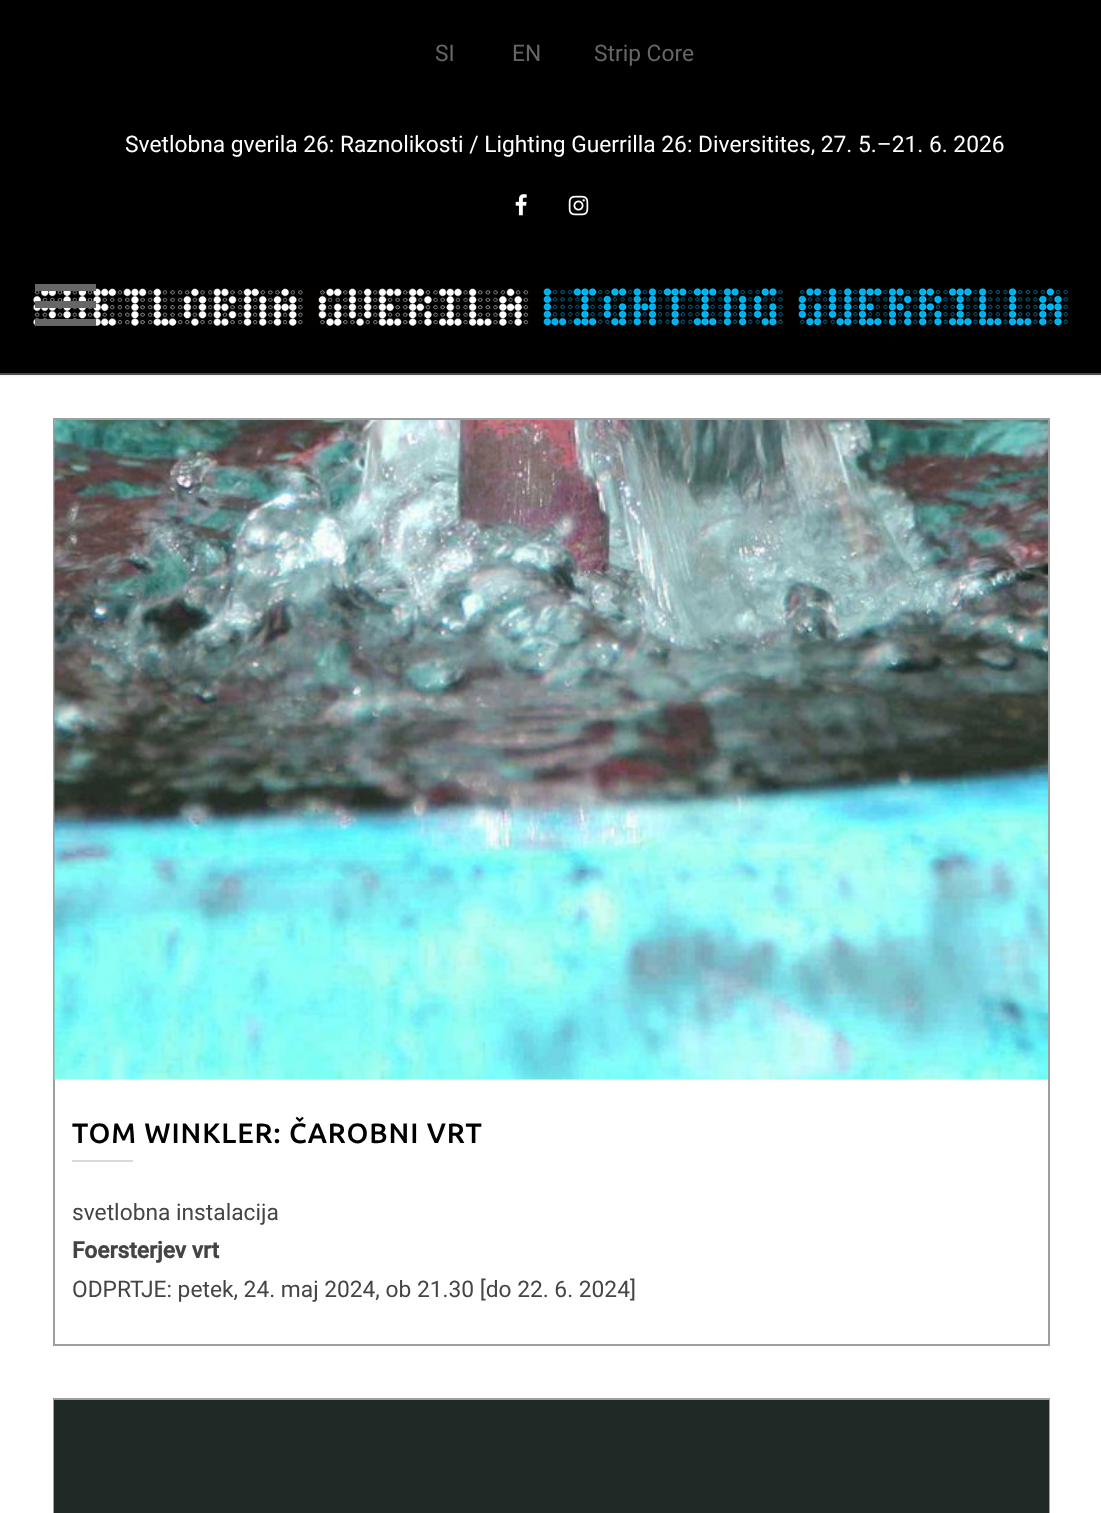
<!DOCTYPE html>
<meta charset="utf-8">
<style>body { margin: 0 } canvas { display: block }</style>
<canvas id="canvas" width="1101" height="1513"></canvas>
<script type="module">
  const canvas = document.getElementById("canvas");
  const ctx = canvas.getContext("2d");
  ctx.miterLimit = 4;
  ctx.fontKerning = "normal";
  async function loadImage(src) {
    const img = new Image();
    img.src = src;
    await img.decode();
    return img;
  }

  ctx.fillStyle = "#ffffff";
  ctx.fillRect(0, 0, 1101, 1513);
  ctx.fillStyle = "rgba(0, 0, 0, 0.06)";
  ctx.filter = "blur(1px)";
  ctx.beginPath();
  ctx.rect(0, 235, 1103, 141);
  ctx.fill();
  ctx.filter = "none";
  ctx.fillStyle = "#000000";
  ctx.fillRect(0, 0, 1101, 373);
  ctx.fillStyle = "#4c4c4c";
  ctx.fillRect(0, 373, 1101, 2);
  ctx.drawImage(await loadImage("img1.png"), 33, 288, 1036, 38);
  ctx.fillStyle = "#666666";
  ctx.fillRect(35, 301, 61, 7);
  ctx.fillRect(35, 284, 61, 7);
  ctx.fillRect(35, 319, 61, 7);
  ctx.font = "22.75px Roboto";
  ctx.fillText("SI", 435, 61);
  ctx.fillText("EN", 512, 61);
  ctx.fillText("Strip Core", 594, 61);
  ctx.fillStyle = "#ffffff";
  ctx.fillText("Svetlobna gverila 26: Raznolikosti / Lighting Guerrilla 26: Diversitites, 27. 5.–21. 6. 2026", 125, 152);
  ctx.drawImage(await loadImage("img2.png"), 515, 194, 12, 22);
  ctx.drawImage(await loadImage("img3.png"), 568, 195, 21, 21);
  ctx.strokeStyle = "#9e9e9e";
  ctx.lineWidth = 2;
  ctx.strokeRect(54, 419, 995, 926);
  ctx.drawImage(await loadImage("img4.png"), 54, 420, 995, 660);
  ctx.letterSpacing = "0.9px";
  ctx.font = "500 28px Ubuntu";
  ctx.fillStyle = "#000000";
  ctx.fillText("TOM WINKLER: ČAROBNI VRT", 72, 1143);
  ctx.fillStyle = "#d9d9d9";
  ctx.fillRect(72, 1160, 61, 2);
  ctx.letterSpacing = "0px";
  ctx.font = "22.75px Roboto";
  ctx.fillStyle = "#444444";
  ctx.fillText("svetlobna instalacija", 72, 1220);
  ctx.font = "bold 22.75px Roboto";
  ctx.fillText("Foersterjev vrt", 72, 1258);
  ctx.font = "22.75px Roboto";
  ctx.fillText("ODPRTJE: petek, 24. maj 2024, ob 21.30 [do 22. 6. 2024]", 72, 1297);
  ctx.strokeRect(54, 1399, 995, 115);
  ctx.fillStyle = "#202926";
  ctx.fillRect(54, 1400, 995, 113);
</script>
